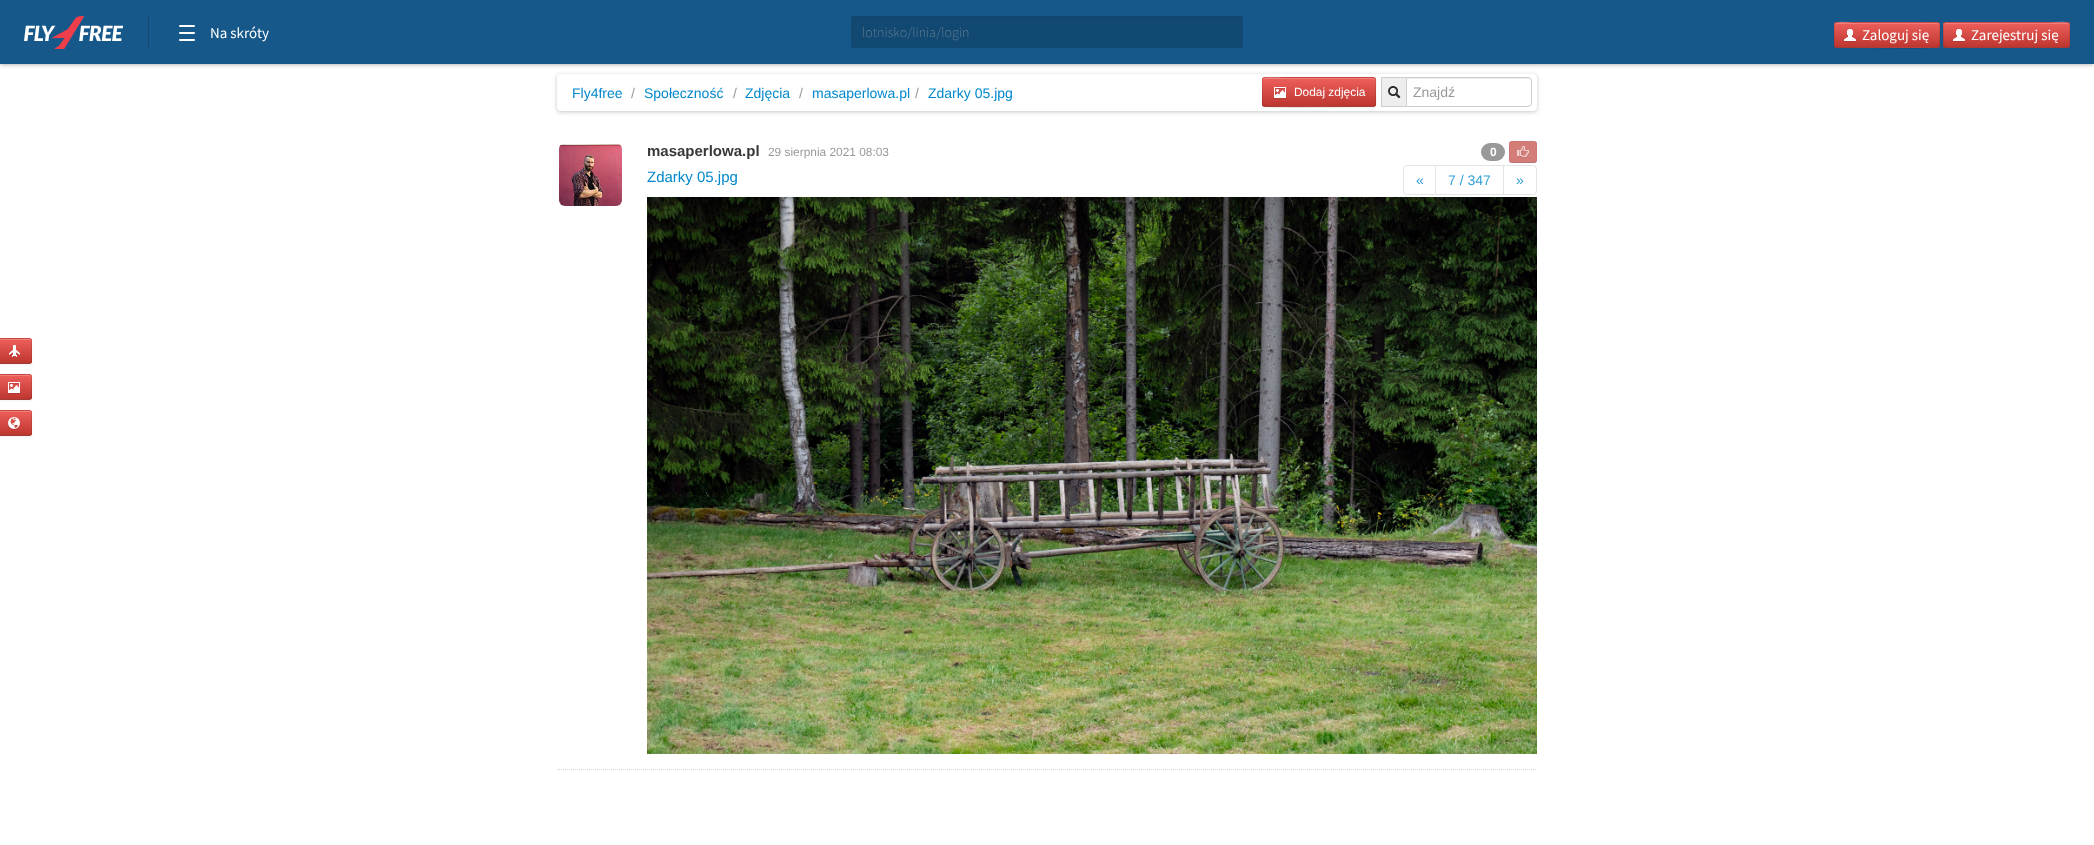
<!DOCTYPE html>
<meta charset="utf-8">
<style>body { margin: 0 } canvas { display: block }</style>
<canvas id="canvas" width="2094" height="845"></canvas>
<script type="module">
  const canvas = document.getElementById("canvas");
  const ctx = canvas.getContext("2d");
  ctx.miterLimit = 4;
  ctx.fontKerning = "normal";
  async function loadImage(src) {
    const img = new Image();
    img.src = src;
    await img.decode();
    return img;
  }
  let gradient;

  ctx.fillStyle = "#ffffff";
  ctx.fillRect(0, 0, 2094, 845);
  ctx.fillStyle = "rgba(0, 0, 0, 0.4)";
  ctx.filter = "blur(2.5px)";
  ctx.beginPath();
  ctx.rect(0, 0, 2094, 64);
  ctx.fill();
  ctx.filter = "none";
  ctx.fillStyle = "#17588a";
  ctx.fillRect(0, 0, 2094, 64);
  ctx.drawImage(await loadImage("img1.png"), 24, 16, 99, 33);
  ctx.fillStyle = "#134a74";
  ctx.fillRect(148, 16, 1, 32);
  ctx.fillStyle = "#ffffff";
  ctx.beginPath();
  ctx.roundRect(179, 39, 16, 2, 1);
  ctx.fill();
  ctx.beginPath();
  ctx.roundRect(179, 25, 16, 2, 1);
  ctx.fill();
  ctx.beginPath();
  ctx.roundRect(179, 32, 16, 2, 1);
  ctx.fill();
  ctx.font = "15px Source Sans Pro";
  ctx.fillText("Na skróty", 210, 38);
  ctx.fillStyle = "#124973";
  ctx.beginPath();
  ctx.roundRect(851, 16, 392, 32, 3);
  ctx.fill();
  ctx.fillStyle = "#11446a";
  ctx.beginPath();
  ctx.moveTo(854, 18);
  ctx.lineTo(1240, 18);
  ctx.bezierCurveTo(1241, 18, 1242, 19, 1242, 20);
  ctx.bezierCurveTo(1242, 19, 1242, 18, 1241, 17);
  ctx.lineTo(854, 17);
  ctx.lineTo(852, 18);
  ctx.lineTo(852, 20);
  ctx.bezierCurveTo(852, 19, 853, 18, 854, 18);
  ctx.closePath();
  ctx.fill();
  ctx.font = "300 14px Source Sans Pro";
  ctx.fillStyle = "#5e7a8f";
  ctx.fillText("lotnisko/linia/login", 862, 37);
  ctx.fillStyle = "#da4f49";
  ctx.beginPath();
  ctx.roundRect(1834, 22, 106, 26, 3);
  ctx.fill();
  ctx.save();
  ctx.beginPath();
  ctx.roundRect(1834, 22, 106, 26, 3);
  ctx.clip();
  gradient = ctx.createLinearGradient(1887, 23, 1887, 47);
  gradient.addColorStop(0, "#ee5f5b");
  gradient.addColorStop(1, "#bd362f");
  ctx.fillStyle = gradient;
  ctx.fillRect(1834, 23, 106, 24);
  ctx.restore();
  ctx.fillStyle = "rgba(255, 255, 255, 0.2)";
  ctx.beginPath();
  ctx.moveTo(1837, 24);
  ctx.lineTo(1937, 24);
  ctx.bezierCurveTo(1938, 24, 1939, 25, 1939, 26);
  ctx.bezierCurveTo(1939, 25, 1939, 23, 1937, 23);
  ctx.lineTo(1854, 23);
  ctx.bezierCurveTo(1853, 23, 1835, 18, 1835, 26);
  ctx.bezierCurveTo(1835, 25, 1836, 24, 1837, 24);
  ctx.closePath();
  ctx.fill();
  ctx.beginPath();
  ctx.moveTo(1939, 47);
  ctx.lineTo(1938.5, 47);
  ctx.bezierCurveTo(1936.5, 48.5, 1862.5, 47.5, 1853.5, 47.5);
  ctx.lineTo(1837, 47.5);
  ctx.lineTo(1835, 47);
  ctx.strokeStyle = "rgba(0, 0, 0, 0.25)";
  ctx.stroke();
  ctx.beginPath();
  ctx.moveTo(1835, 47);
  ctx.bezierCurveTo(1833.5, 45, 1834.5, 40.5, 1834.5, 38.5);
  ctx.bezierCurveTo(1834.5, 18, 1831, 22.5, 1853.5, 22.5);
  ctx.lineTo(1920.5, 22.5);
  ctx.bezierCurveTo(1943, 22.5, 1939.5, 18, 1939.5, 38.5);
  ctx.bezierCurveTo(1939.5, 40.5, 1940.5, 45, 1939, 47);
  ctx.strokeStyle = "rgba(0, 0, 0, 0.1)";
  ctx.stroke();
  ctx.drawImage(await loadImage("img2.png"), 1844, 29, 12, 13);
  ctx.font = "15px Source Sans Pro";
  ctx.fillStyle = "#ffffff";
  ctx.fillText("Zaloguj się", 1862, 40);
  ctx.fillStyle = "#da4f49";
  ctx.beginPath();
  ctx.roundRect(1943, 22, 127, 26, 3);
  ctx.fill();
  ctx.save();
  ctx.beginPath();
  ctx.roundRect(1943, 22, 127, 26, 3);
  ctx.clip();
  gradient = ctx.createLinearGradient(2007, 23, 2007, 47);
  gradient.addColorStop(0, "#ee5f5b");
  gradient.addColorStop(1, "#bd362f");
  ctx.fillStyle = gradient;
  ctx.fillRect(1943, 23, 127, 24);
  ctx.restore();
  ctx.fillStyle = "rgba(255, 255, 255, 0.2)";
  ctx.beginPath();
  ctx.moveTo(1946, 24);
  ctx.lineTo(2067, 24);
  ctx.lineTo(2069, 25);
  ctx.lineTo(2069, 26);
  ctx.bezierCurveTo(2069, 18, 2053, 23, 2047, 23);
  ctx.lineTo(1945, 23);
  ctx.bezierCurveTo(1944, 24, 1944, 25, 1944, 26);
  ctx.bezierCurveTo(1944, 25, 1945, 24, 1946, 24);
  ctx.closePath();
  ctx.fill();
  ctx.beginPath();
  ctx.moveTo(2069, 47);
  ctx.lineTo(2067, 47.5);
  ctx.lineTo(1966, 47.5);
  ctx.lineTo(1946, 47.5);
  ctx.lineTo(1944, 47);
  ctx.strokeStyle = "rgba(0, 0, 0, 0.25)";
  ctx.stroke();
  ctx.beginPath();
  ctx.moveTo(1944, 47);
  ctx.bezierCurveTo(1942.5, 45, 1943.5, 37.5, 1943.5, 35);
  ctx.lineTo(1943.5, 28.5);
  ctx.bezierCurveTo(1943.5, 26.5, 1943, 22.5, 1946, 22.5);
  ctx.lineTo(2067, 22.5);
  ctx.bezierCurveTo(2070, 22.5, 2069.5, 26.5, 2069.5, 28.5);
  ctx.lineTo(2069.5, 35);
  ctx.bezierCurveTo(2069.5, 37.5, 2070.5, 45, 2069, 47);
  ctx.strokeStyle = "rgba(0, 0, 0, 0.1)";
  ctx.stroke();
  ctx.drawImage(await loadImage("img2.png"), 1953, 29, 12, 13);
  ctx.fillStyle = "#ffffff";
  ctx.fillText("Zarejestruj się", 1971, 40);
  ctx.save();
  ctx.beginPath();
  ctx.moveTo(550, 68);
  ctx.lineTo(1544, 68);
  ctx.lineTo(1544, 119);
  ctx.lineTo(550, 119);
  ctx.closePath();
  ctx.moveTo(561, 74);
  ctx.lineTo(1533, 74);
  ctx.bezierCurveTo(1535, 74, 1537, 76, 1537, 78);
  ctx.lineTo(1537, 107);
  ctx.bezierCurveTo(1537, 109, 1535, 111, 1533, 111);
  ctx.lineTo(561, 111);
  ctx.bezierCurveTo(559, 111, 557, 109, 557, 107);
  ctx.lineTo(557, 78);
  ctx.bezierCurveTo(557, 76, 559, 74, 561, 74);
  ctx.closePath();
  ctx.clip("evenodd");
  ctx.fillStyle = "rgba(0, 0, 0, 0.22)";
  ctx.filter = "blur(2px)";
  ctx.beginPath();
  ctx.roundRect(557, 75, 980, 37, 4);
  ctx.fill();
  ctx.filter = "none";
  ctx.restore();
  ctx.font = "14px Liberation Sans";
  ctx.fillStyle = "#0088cc";
  ctx.fillText("Fly4free", 572, 98);
  ctx.fillStyle = "#999999";
  ctx.fillText("/", 631, 98);
  ctx.fillStyle = "#0088cc";
  ctx.fillText("Społeczność", 644, 98);
  ctx.fillStyle = "#999999";
  ctx.fillText("/", 733, 98);
  ctx.fillStyle = "#0088cc";
  ctx.fillText("Zdjęcia", 745, 98);
  ctx.fillStyle = "#999999";
  ctx.fillText("/", 799, 98);
  ctx.fillStyle = "#0088cc";
  ctx.fillText("masaperlowa.pl", 812, 98);
  ctx.fillStyle = "#999999";
  ctx.fillText("/", 915, 98);
  ctx.fillStyle = "#0088cc";
  ctx.fillText("Zdarky 05.jpg", 928, 98);
  ctx.fillStyle = "rgba(0, 0, 0, 0.05)";
  ctx.filter = "blur(1px)";
  ctx.beginPath();
  ctx.roundRect(1262, 78, 114, 30, 3);
  ctx.fill();
  ctx.filter = "none";
  ctx.fillStyle = "#da4f49";
  ctx.beginPath();
  ctx.roundRect(1262, 77, 114, 30, 3);
  ctx.fill();
  ctx.save();
  ctx.beginPath();
  ctx.roundRect(1262, 77, 114, 30, 3);
  ctx.clip();
  gradient = ctx.createLinearGradient(1319, 78, 1319, 106);
  gradient.addColorStop(0, "#ee5f5b");
  gradient.addColorStop(1, "#bd362f");
  ctx.fillStyle = gradient;
  ctx.fillRect(1262, 78, 114, 28);
  ctx.restore();
  ctx.fillStyle = "rgba(255, 255, 255, 0.2)";
  ctx.beginPath();
  ctx.moveTo(1265, 79);
  ctx.lineTo(1373, 79);
  ctx.bezierCurveTo(1374, 79, 1375, 80, 1375, 81);
  ctx.bezierCurveTo(1375, 80, 1375, 78, 1373, 78);
  ctx.lineTo(1283, 78);
  ctx.bezierCurveTo(1283, 78, 1263, 73, 1263, 81);
  ctx.bezierCurveTo(1263, 80, 1264, 79, 1265, 79);
  ctx.closePath();
  ctx.fill();
  ctx.beginPath();
  ctx.moveTo(1375, 106);
  ctx.lineTo(1373, 106.5);
  ctx.lineTo(1355, 106.5);
  ctx.bezierCurveTo(1346, 106.5, 1265.5, 107.5, 1263.5, 106);
  ctx.lineTo(1263, 106);
  ctx.strokeStyle = "rgba(0, 0, 0, 0.25)";
  ctx.stroke();
  ctx.beginPath();
  ctx.moveTo(1263, 106);
  ctx.bezierCurveTo(1261.5, 104, 1262.5, 98, 1262.5, 96);
  ctx.bezierCurveTo(1262.5, 73, 1258, 77.5, 1283, 77.5);
  ctx.lineTo(1355, 77.5);
  ctx.bezierCurveTo(1380, 77.5, 1375.5, 73, 1375.5, 96);
  ctx.bezierCurveTo(1375.5, 98, 1376.5, 104, 1375, 106);
  ctx.strokeStyle = "rgba(0, 0, 0, 0.1)";
  ctx.stroke();
  ctx.drawImage(await loadImage("img3.png"), 1274, 87, 12, 12);
  ctx.font = "11.9px Liberation Sans";
  ctx.fillStyle = "#ffffff";
  ctx.fillText("Dodaj zdjęcia", 1294, 96);
  ctx.fillStyle = "#eeeeee";
  ctx.beginPath();
  ctx.rect(1381.5, 77.5, 25, 29);
  ctx.fill();
  ctx.strokeStyle = "#cccccc";
  ctx.stroke();
  ctx.drawImage(await loadImage("img4.png"), 1388, 86, 13, 13);
  ctx.fillStyle = "#ffffff";
  ctx.beginPath();
  ctx.roundRect(1406, 77, 126, 30, [0, 4, 4, 0]);
  ctx.fill();
  ctx.fillStyle = "#ececec";
  ctx.beginPath();
  ctx.moveTo(1407, 79);
  ctx.lineTo(1528, 79);
  ctx.bezierCurveTo(1530, 79, 1531, 80, 1531, 82);
  ctx.lineTo(1531, 81);
  ctx.bezierCurveTo(1531, 79, 1530, 78, 1528, 78);
  ctx.lineTo(1407, 78);
  ctx.closePath();
  ctx.fill();
  ctx.beginPath();
  ctx.roundRect(1406.5, 77.5, 125, 29, [0, 3.5, 3.5, 0]);
  ctx.stroke();
  ctx.font = "14px Liberation Sans";
  ctx.fillStyle = "#999999";
  ctx.fillText("Znajdź", 1413, 97);
  ctx.beginPath();
  ctx.moveTo(557, 769.5);
  ctx.lineTo(1537, 769.5);
  ctx.strokeStyle = "#d3d5d0";
  ctx.setLineDash([1, 1]);
  ctx.stroke();
  ctx.drawImage(await loadImage("img5.png"), 559, 144, 63, 62);
  ctx.font = "bold 15px Liberation Sans";
  ctx.fillStyle = "#383838";
  ctx.fillText("masaperlowa.pl", 647, 156);
  ctx.font = "11.9px Liberation Sans";
  ctx.fillStyle = "#999999";
  ctx.fillText("29 sierpnia 2021 08:03", 768, 156);
  ctx.beginPath();
  ctx.roundRect(1481, 143, 24, 18, 9);
  ctx.fill();
  ctx.font = "bold 12px Liberation Sans";
  ctx.fillStyle = "#ffffff";
  ctx.fillText("0", 1490, 156);
  ctx.fillStyle = "#d47c78";
  ctx.beginPath();
  ctx.roundRect(1509, 141, 28, 22, 3);
  ctx.fill();
  ctx.beginPath();
  ctx.moveTo(1536, 162);
  ctx.bezierCurveTo(1535.5, 162, 1534.5, 162.5, 1534, 162.5);
  ctx.lineTo(1512, 162.5);
  ctx.bezierCurveTo(1511.5, 162.5, 1510.5, 162, 1510, 162);
  ctx.strokeStyle = "rgba(89, 89, 89, 0.25)";
  ctx.setLineDash([]);
  ctx.stroke();
  ctx.beginPath();
  ctx.moveTo(1510, 162);
  ctx.bezierCurveTo(1509, 160.5, 1509.5, 158.5, 1509.5, 157.5);
  ctx.lineTo(1509.5, 152);
  ctx.bezierCurveTo(1509.5, 138.5, 1508.5, 141.5, 1523, 141.5);
  ctx.bezierCurveTo(1537.5, 141.5, 1536.5, 138.5, 1536.5, 152);
  ctx.lineTo(1536.5, 157.5);
  ctx.bezierCurveTo(1536.5, 158.5, 1537, 160.5, 1536, 162);
  ctx.strokeStyle = "rgba(89, 89, 89, 0.1)";
  ctx.stroke();
  ctx.drawImage(await loadImage("img6.png"), 1517, 146, 12, 12);
  ctx.font = "15px Liberation Sans";
  ctx.fillStyle = "#0088cc";
  ctx.fillText("Zdarky 05.jpg", 647, 182);
  ctx.beginPath();
  ctx.roundRect(1403.5, 165.5, 32, 29, [3.5, 0, 0, 3.5]);
  ctx.strokeStyle = "#e4e4e4";
  ctx.stroke();
  ctx.font = "14px Liberation Sans";
  ctx.fillStyle = "#33a0d6";
  ctx.fillText("«", 1416, 185);
  ctx.fillStyle = "#e4e4e4";
  ctx.fillRect(1436, 165, 68, 1);
  ctx.fillRect(1503, 165, 1, 30);
  ctx.fillRect(1436, 194, 68, 1);
  ctx.fillStyle = "#33a0d6";
  ctx.fillText("7 / 347", 1448, 185);
  ctx.fillStyle = "#e4e4e4";
  ctx.beginPath();
  ctx.moveTo(1504, 165);
  ctx.lineTo(1533, 165);
  ctx.bezierCurveTo(1535, 165, 1537, 167, 1537, 169);
  ctx.lineTo(1537, 191);
  ctx.bezierCurveTo(1537, 193, 1535, 195, 1533, 195);
  ctx.lineTo(1504, 195);
  ctx.closePath();
  ctx.moveTo(1504, 166);
  ctx.lineTo(1533, 166);
  ctx.bezierCurveTo(1534.5, 166, 1536, 167.5, 1536, 169);
  ctx.lineTo(1536, 191);
  ctx.bezierCurveTo(1536, 192.5, 1534.5, 194, 1533, 194);
  ctx.lineTo(1504, 194);
  ctx.closePath();
  ctx.fill("evenodd");
  ctx.fillStyle = "#33a0d6";
  ctx.fillText("»", 1516, 185);
  ctx.drawImage(await loadImage("img7.png"), 647, 197, 890, 557);
  ctx.fillStyle = "rgba(0, 0, 0, 0.05)";
  ctx.filter = "blur(1px)";
  ctx.beginPath();
  ctx.roundRect(-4, 339, 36, 26, 3);
  ctx.fill();
  ctx.filter = "none";
  ctx.fillStyle = "#da4f49";
  ctx.beginPath();
  ctx.roundRect(-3, 338, 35, 26, 3);
  ctx.fill();
  ctx.save();
  ctx.beginPath();
  ctx.roundRect(-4, 338, 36, 26, 3);
  ctx.clip();
  gradient = ctx.createLinearGradient(14, 339, 14, 363);
  gradient.addColorStop(0, "#ee5f5b");
  gradient.addColorStop(1, "#bd362f");
  ctx.fillStyle = gradient;
  ctx.fillRect(0, 339, 32, 24);
  ctx.restore();
  ctx.fillStyle = "#f17e7b";
  ctx.beginPath();
  ctx.moveTo(-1, 340);
  ctx.lineTo(29, 340);
  ctx.bezierCurveTo(30, 340, 31, 341, 31, 342);
  ctx.bezierCurveTo(31, 337.5, 28, 339, 24, 339);
  ctx.lineTo(4, 339);
  ctx.bezierCurveTo(0, 339, -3, 337.5, -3, 342);
  ctx.bezierCurveTo(-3, 341, -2, 340, -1, 340);
  ctx.closePath();
  ctx.fill();
  ctx.beginPath();
  ctx.moveTo(31, 363);
  ctx.bezierCurveTo(30.5, 363, 29.5, 363.5, 29, 363.5);
  ctx.lineTo(-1, 363.5);
  ctx.bezierCurveTo(-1.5, 363.5, -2.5, 363, -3, 363);
  ctx.strokeStyle = "rgba(0, 0, 0, 0.25)";
  ctx.stroke();
  ctx.beginPath();
  ctx.moveTo(-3, 363);
  ctx.bezierCurveTo(-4, 361.5, -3.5, 359, -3.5, 357.5);
  ctx.lineTo(-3.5, 344.5);
  ctx.bezierCurveTo(-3.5, 337.5, -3, 338.5, 4, 338.5);
  ctx.lineTo(24, 338.5);
  ctx.bezierCurveTo(31, 338.5, 31.5, 337.5, 31.5, 344.5);
  ctx.lineTo(31.5, 357.5);
  ctx.bezierCurveTo(31.5, 359, 32, 361.5, 31, 363);
  ctx.strokeStyle = "rgba(0, 0, 0, 0.1)";
  ctx.stroke();
  ctx.drawImage(await loadImage("img8.png"), 9, 345, 11, 13);
  ctx.fillStyle = "rgba(0, 0, 0, 0.05)";
  ctx.filter = "blur(1px)";
  ctx.beginPath();
  ctx.roundRect(-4, 375, 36, 26, 3);
  ctx.fill();
  ctx.filter = "none";
  ctx.fillStyle = "#da4f49";
  ctx.beginPath();
  ctx.roundRect(-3, 374, 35, 26, 3);
  ctx.fill();
  ctx.save();
  ctx.beginPath();
  ctx.roundRect(-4, 374, 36, 26, 3);
  ctx.clip();
  gradient = ctx.createLinearGradient(14, 375, 14, 399);
  gradient.addColorStop(0, "#ee5f5b");
  gradient.addColorStop(1, "#bd362f");
  ctx.fillStyle = gradient;
  ctx.fillRect(0, 375, 32, 24);
  ctx.restore();
  ctx.fillStyle = "#f17e7b";
  ctx.beginPath();
  ctx.moveTo(-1, 376);
  ctx.lineTo(29, 376);
  ctx.bezierCurveTo(30, 376, 31, 377, 31, 378);
  ctx.bezierCurveTo(31, 373.5, 28, 375, 24, 375);
  ctx.lineTo(4, 375);
  ctx.bezierCurveTo(0, 375, -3, 373.5, -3, 378);
  ctx.bezierCurveTo(-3, 377, -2, 376, -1, 376);
  ctx.closePath();
  ctx.fill();
  ctx.beginPath();
  ctx.moveTo(31, 399);
  ctx.bezierCurveTo(30.5, 399, 29.5, 399.5, 29, 399.5);
  ctx.lineTo(-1, 399.5);
  ctx.bezierCurveTo(-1.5, 399.5, -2.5, 399, -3, 399);
  ctx.strokeStyle = "rgba(0, 0, 0, 0.25)";
  ctx.stroke();
  ctx.beginPath();
  ctx.moveTo(-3, 399);
  ctx.bezierCurveTo(-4, 397.5, -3.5, 395, -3.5, 393.5);
  ctx.lineTo(-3.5, 380.5);
  ctx.bezierCurveTo(-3.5, 373.5, -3, 374.5, 4, 374.5);
  ctx.lineTo(24, 374.5);
  ctx.bezierCurveTo(31, 374.5, 31.5, 373.5, 31.5, 380.5);
  ctx.lineTo(31.5, 393.5);
  ctx.bezierCurveTo(31.5, 395, 32, 397.5, 31, 399);
  ctx.strokeStyle = "rgba(0, 0, 0, 0.1)";
  ctx.stroke();
  ctx.drawImage(await loadImage("img9.png"), 8, 382, 12, 12);
  ctx.fillStyle = "rgba(0, 0, 0, 0.05)";
  ctx.filter = "blur(1px)";
  ctx.beginPath();
  ctx.roundRect(-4, 411, 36, 26, 3);
  ctx.fill();
  ctx.filter = "none";
  ctx.fillStyle = "#da4f49";
  ctx.beginPath();
  ctx.roundRect(-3, 410, 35, 26, 3);
  ctx.fill();
  ctx.save();
  ctx.beginPath();
  ctx.roundRect(-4, 410, 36, 26, 3);
  ctx.clip();
  gradient = ctx.createLinearGradient(14, 411, 14, 435);
  gradient.addColorStop(0, "#ee5f5b");
  gradient.addColorStop(1, "#bd362f");
  ctx.fillStyle = gradient;
  ctx.fillRect(0, 411, 32, 24);
  ctx.restore();
  ctx.fillStyle = "#f17e7b";
  ctx.beginPath();
  ctx.moveTo(-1, 412);
  ctx.lineTo(29, 412);
  ctx.bezierCurveTo(30, 412, 31, 413, 31, 414);
  ctx.bezierCurveTo(31, 409.5, 28, 411, 24, 411);
  ctx.lineTo(4, 411);
  ctx.bezierCurveTo(0, 411, -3, 409.5, -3, 414);
  ctx.bezierCurveTo(-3, 413, -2, 412, -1, 412);
  ctx.closePath();
  ctx.fill();
  ctx.beginPath();
  ctx.moveTo(31, 435);
  ctx.bezierCurveTo(30.5, 435, 29.5, 435.5, 29, 435.5);
  ctx.lineTo(-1, 435.5);
  ctx.bezierCurveTo(-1.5, 435.5, -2.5, 435, -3, 435);
  ctx.strokeStyle = "rgba(0, 0, 0, 0.25)";
  ctx.stroke();
  ctx.beginPath();
  ctx.moveTo(-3, 435);
  ctx.bezierCurveTo(-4, 433.5, -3.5, 431, -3.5, 429.5);
  ctx.lineTo(-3.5, 416.5);
  ctx.bezierCurveTo(-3.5, 409.5, -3, 410.5, 4, 410.5);
  ctx.lineTo(24, 410.5);
  ctx.bezierCurveTo(31, 410.5, 31.5, 409.5, 31.5, 416.5);
  ctx.lineTo(31.5, 429.5);
  ctx.bezierCurveTo(31.5, 431, 32, 433.5, 31, 435);
  ctx.strokeStyle = "rgba(0, 0, 0, 0.1)";
  ctx.stroke();
  ctx.drawImage(await loadImage("img10.png"), 8, 417, 12, 13);
</script>
